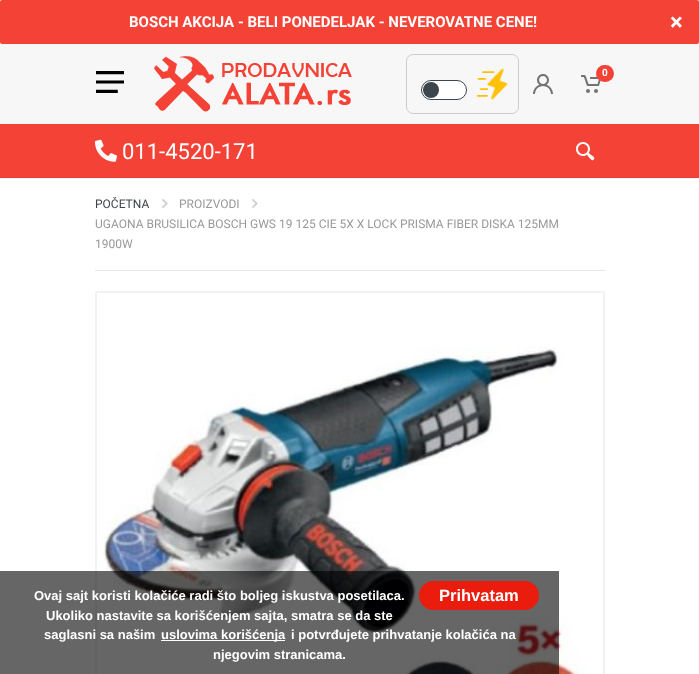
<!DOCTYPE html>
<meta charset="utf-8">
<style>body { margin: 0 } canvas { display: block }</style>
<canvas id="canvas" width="699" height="674"></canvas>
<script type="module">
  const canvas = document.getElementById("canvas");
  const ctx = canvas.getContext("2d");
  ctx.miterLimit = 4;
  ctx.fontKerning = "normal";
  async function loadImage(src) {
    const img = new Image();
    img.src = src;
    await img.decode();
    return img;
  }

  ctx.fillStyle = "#ffffff";
  ctx.fillRect(0, 0, 699, 674);
  ctx.fillStyle = "#f44336";
  ctx.beginPath();
  ctx.roundRect(0, 0, 699, 44, 2);
  ctx.fill();
  ctx.font = "bold 15px Roboto";
  ctx.fillStyle = "#ffffff";
  ctx.fillText("BOSCH AKCIJA - BELI PONEDELJAK - NEVEROVATNE CENE!", 129, 27);
  ctx.font = "bold 24px Roboto";
  ctx.fillText("×", 670, 30);
  ctx.fillStyle = "#f7f7f7";
  ctx.fillRect(0, 44, 699, 80);
  ctx.drawImage(await loadImage("img1.png"), 96, 71, 28, 22);
  ctx.drawImage(await loadImage("img2.png"), 153, 56, 199, 56);
  ctx.beginPath();
  ctx.roundRect(406.5, 54.5, 112, 59, 6.5);
  ctx.strokeStyle = "#cccccc";
  ctx.stroke();
  ctx.fillStyle = "#ffffff";
  ctx.beginPath();
  ctx.roundRect(421.5, 80.5, 45, 19, 9.5);
  ctx.fill();
  ctx.strokeStyle = "#3d464d";
  ctx.stroke();
  ctx.fillStyle = "#3d464d";
  ctx.beginPath();
  ctx.arc(431, 90, 8, 0, Math.PI * 2);
  ctx.fill();
  ctx.drawImage(await loadImage("img3.png"), 476, 68, 32, 32);
  ctx.drawImage(await loadImage("img4.png"), 533, 74, 20, 20);
  ctx.drawImage(await loadImage("img5.png"), 581, 75, 20, 18);
  ctx.fillStyle = "#f44336";
  ctx.beginPath();
  ctx.roundRect(596, 65, 18, 17, 8.5);
  ctx.fill();
  ctx.font = "bold 10px Roboto";
  ctx.fillStyle = "#ffffff";
  ctx.fillText("0", 602, 76);
  ctx.fillStyle = "#f5f5f5";
  ctx.fillRect(0, 178, 699, 1);
  ctx.fillStyle = "#f44336";
  ctx.fillRect(0, 124, 699, 53);
  ctx.fillStyle = "#ea4034";
  ctx.fillRect(0, 177, 699, 1);
  ctx.drawImage(await loadImage("img6.png"), 95, 139, 22, 23);
  ctx.font = "22px Roboto";
  ctx.fillStyle = "#ffffff";
  ctx.fillText("011-4520-171", 122, 159);
  ctx.drawImage(await loadImage("img7.png"), 576, 142, 19, 19);
  ctx.font = "12px Roboto";
  ctx.fillStyle = "#3d464d";
  ctx.fillText("POČETNA", 95, 208);
  ctx.drawImage(await loadImage("img8.png"), 162, 199, 6, 9);
  ctx.fillStyle = "#999999";
  ctx.fillText("PROIZVODI", 179, 208);
  ctx.drawImage(await loadImage("img8.png"), 252, 199, 6, 9);
  ctx.fillText("UGAONA BRUSILICA BOSCH GWS 19 125 CIE 5X X LOCK PRISMA FIBER DISKA 125MM", 95, 228);
  ctx.fillText("1900W", 95, 248);
  ctx.fillStyle = "#e6e6e6";
  ctx.fillRect(95, 270, 510, 1);
  ctx.beginPath();
  ctx.roundRect(96, 292, 508, 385, 1);
  ctx.strokeStyle = "#f2f2f2";
  ctx.lineWidth = 2;
  ctx.stroke();
  ctx.drawImage(await loadImage("img9.png"), 97, 347, 490, 327);
  ctx.fillStyle = "rgba(0, 0, 0, 0.6)";
  ctx.fillRect(0, 571, 559, 103);
  ctx.fillStyle = "#ea1c0d";
  ctx.beginPath();
  ctx.roundRect(419, 581, 120, 29, 14.5);
  ctx.fill();
  ctx.font = "bold 16.5px Liberation Sans";
  ctx.fillStyle = "#ffffff";
  ctx.fillText("Prihvatam", 439, 601);
  ctx.font = "bold 13px Liberation Sans";
  ctx.fillText("Ovaj sajt koristi kolačiće radi što boljeg iskustva posetilaca.", 34, 600);
  ctx.fillText("Ukoliko nastavite sa korišćenjem sajta, smatra se da ste", 46, 620);
  ctx.fillText("saglasni sa našim", 44, 639);
  ctx.fillRect(161, 640, 124, 1);
  ctx.fillText("uslovima korišćenja", 161, 639);
  ctx.fillText("i potvrđujete prihvatanje kolačića na", 291, 639);
  ctx.fillText("njegovim stranicama.", 213, 659);
</script>
